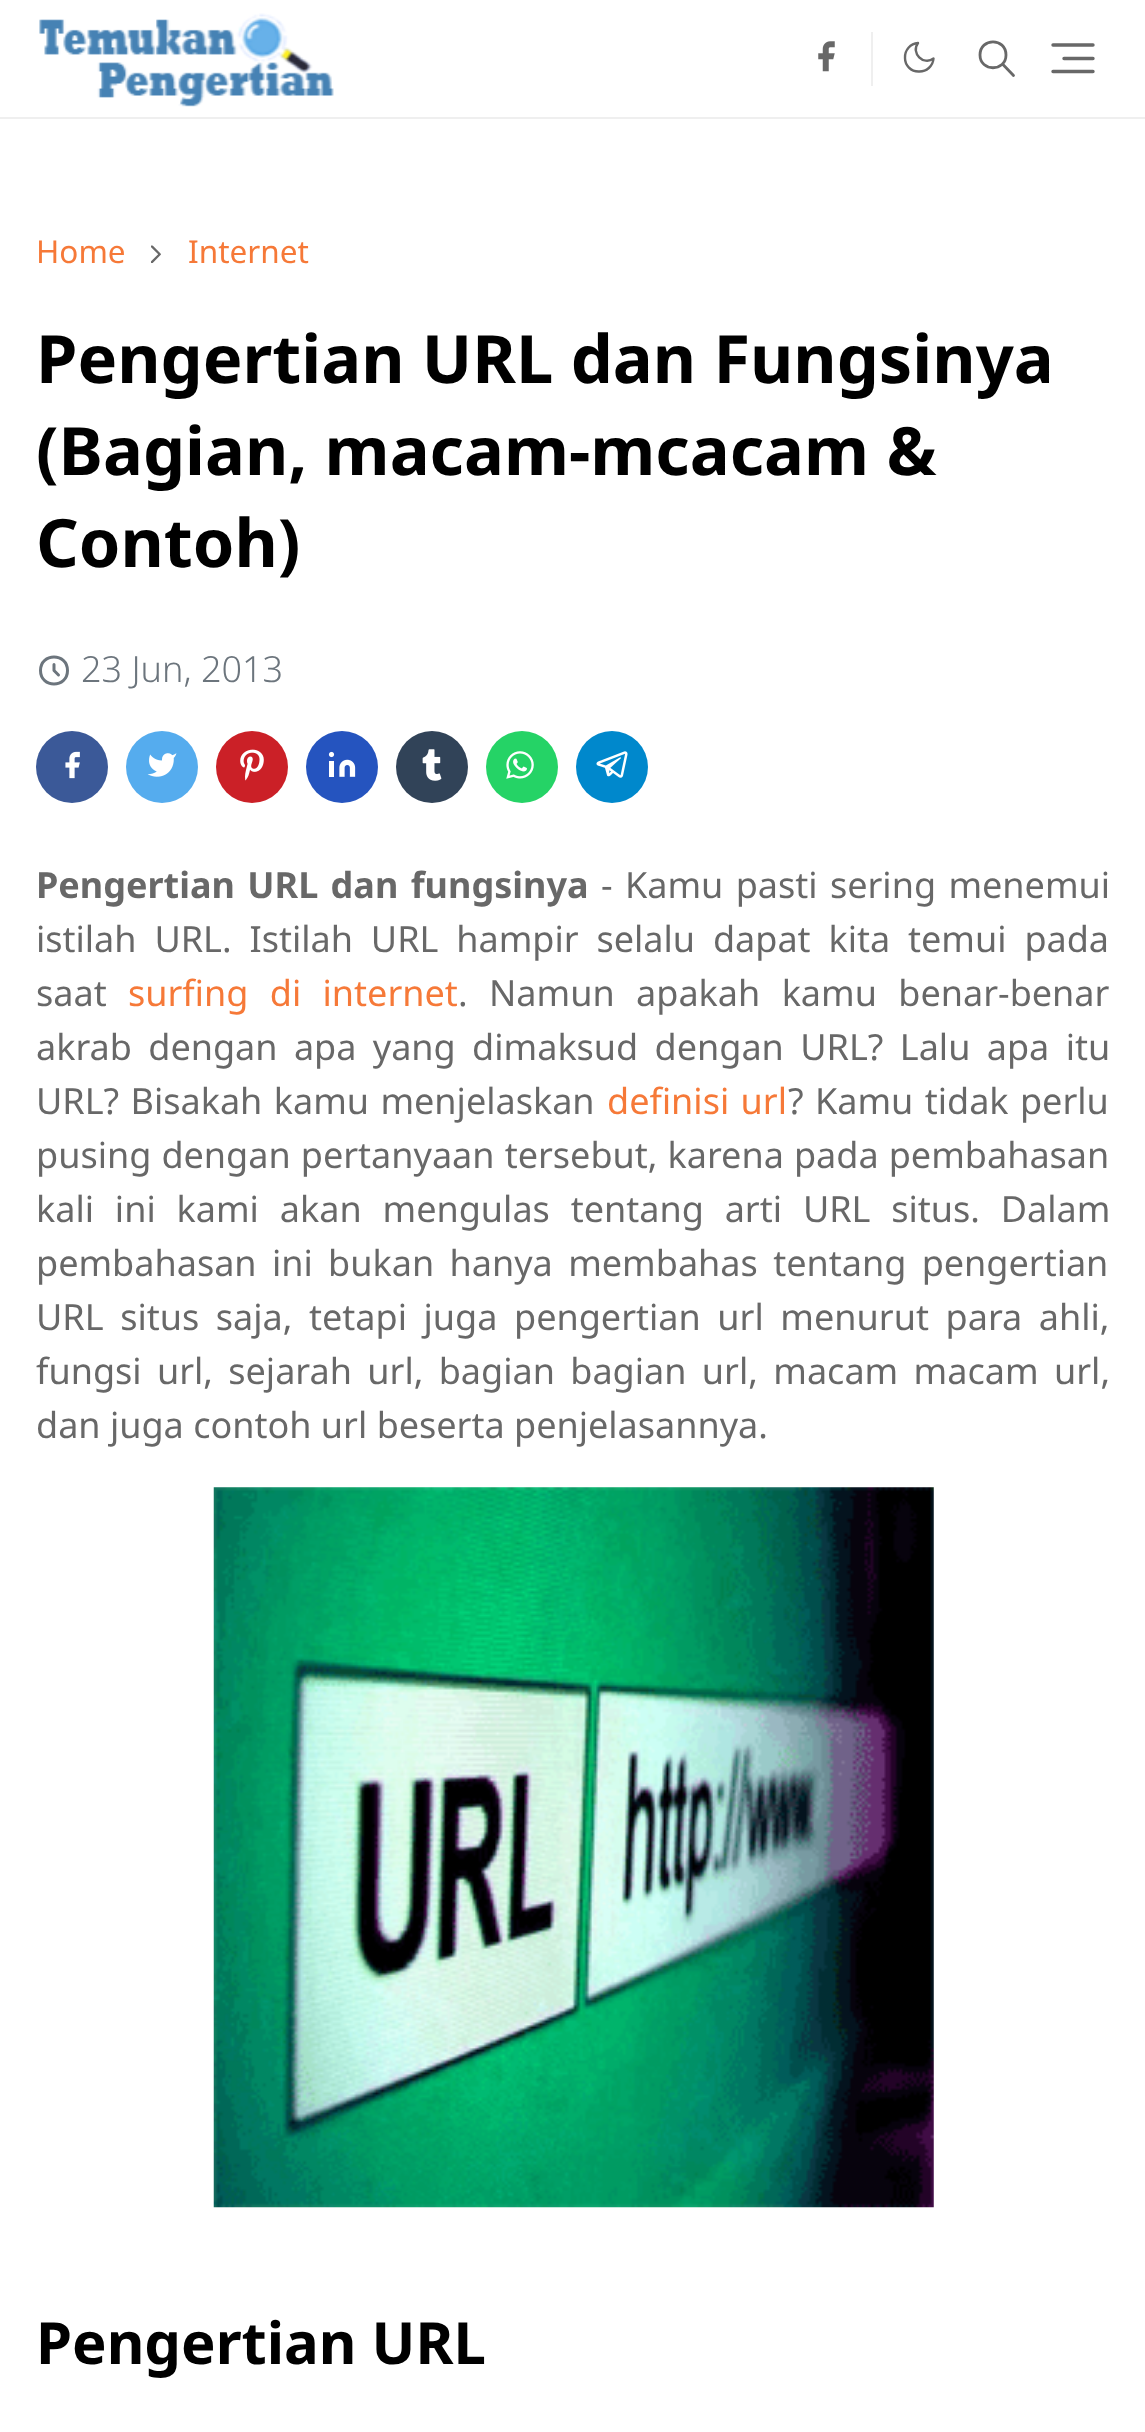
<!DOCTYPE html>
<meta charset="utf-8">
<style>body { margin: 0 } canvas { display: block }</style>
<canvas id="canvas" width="1145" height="2432"></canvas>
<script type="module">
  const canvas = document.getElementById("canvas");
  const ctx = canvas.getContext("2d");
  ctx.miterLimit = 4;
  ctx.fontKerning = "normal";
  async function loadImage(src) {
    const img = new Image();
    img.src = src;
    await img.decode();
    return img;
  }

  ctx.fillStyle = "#ffffff";
  ctx.fillRect(0, 0, 1145, 2432);
  ctx.fillStyle = "#efefef";
  ctx.fillRect(0, 117, 1145, 2);
  ctx.drawImage(await loadImage("img1.png"), 39, 13, 295, 94);
  ctx.fillRect(871, 32, 2, 54);
  ctx.drawImage(await loadImage("img2.png"), 818, 41, 17, 31);
  ctx.beginPath();
  ctx.moveTo(933.5, 58.5);
  ctx.bezierCurveTo(933, 66, 926.5, 72, 918.5, 71.5);
  ctx.bezierCurveTo(911, 71.5, 905, 65.5, 905, 58);
  ctx.bezierCurveTo(904.5, 50, 910.5, 43.5, 918, 43);
  ctx.bezierCurveTo(910.5, 53, 923.5, 66, 933.5, 58.5);
  ctx.closePath();
  ctx.strokeStyle = "#686868";
  ctx.lineWidth = 2.4;
  ctx.lineCap = "round";
  ctx.lineJoin = "round";
  ctx.stroke();
  ctx.beginPath();
  ctx.moveTo(1013.5, 75.5);
  ctx.lineTo(1002.5, 64);
  ctx.moveTo(1006, 55);
  ctx.bezierCurveTo(1006, 72, 980, 72, 980, 55);
  ctx.bezierCurveTo(980, 37.5, 1006, 37.5, 1006, 55);
  ctx.closePath();
  ctx.lineWidth = 2.8;
  ctx.stroke();
  ctx.beginPath();
  ctx.moveTo(1053, 45);
  ctx.lineTo(1093, 45);
  ctx.moveTo(1064, 58.5);
  ctx.lineTo(1093, 58.5);
  ctx.moveTo(1053, 71.5);
  ctx.lineTo(1093, 71.5);
  ctx.lineWidth = 3.4;
  ctx.stroke();
  ctx.font = "31.5px Noto Sans";
  ctx.fillStyle = "#f67938";
  ctx.fillText("Home", 36, 263);
  ctx.drawImage(await loadImage("img3.png"), 151, 245, 10, 18);
  ctx.fillText("Internet", 188, 263);
  ctx.font = "bold 66.7px Noto Sans";
  ctx.fillStyle = "#000000";
  ctx.fillText("Pengertian URL dan Fungsinya", 36, 383);
  ctx.fillText("(Bagian, macam-mcacam &", 36, 475);
  ctx.fillText("Contoh)", 36, 567);
  ctx.beginPath();
  ctx.moveTo(54, 664.5);
  ctx.lineTo(54, 670.5);
  ctx.lineTo(58.5, 675);
  ctx.moveTo(67.5, 670.5);
  ctx.bezierCurveTo(67.5, 688.5, 40.5, 688.5, 40.5, 670.5);
  ctx.bezierCurveTo(40.5, 652.5, 67.5, 652.5, 67.5, 670.5);
  ctx.closePath();
  ctx.strokeStyle = "#6c757d";
  ctx.lineWidth = 3;
  ctx.stroke();
  ctx.font = "300 36px Noto Sans";
  ctx.fillStyle = "#6c757d";
  ctx.fillText("23 Jun, 2013", 81, 682);
  ctx.fillStyle = "#3b5998";
  ctx.beginPath();
  ctx.arc(72, 767, 36, 0, Math.PI * 2);
  ctx.fill();
  ctx.drawImage(await loadImage("img4.png"), 65, 751, 15, 28);
  ctx.fillStyle = "#55acee";
  ctx.beginPath();
  ctx.arc(162, 767, 36, 0, Math.PI * 2);
  ctx.fill();
  ctx.drawImage(await loadImage("img5.png"), 147, 753, 30, 24);
  ctx.fillStyle = "#cb2027";
  ctx.beginPath();
  ctx.arc(252, 767, 36, 0, Math.PI * 2);
  ctx.fill();
  ctx.drawImage(await loadImage("img6.png"), 240, 749, 24, 32);
  ctx.fillStyle = "#2554bf";
  ctx.beginPath();
  ctx.arc(342, 767, 36, 0, Math.PI * 2);
  ctx.fill();
  ctx.drawImage(await loadImage("img7.png"), 328, 751, 28, 26);
  ctx.fillStyle = "#314358";
  ctx.beginPath();
  ctx.arc(432, 767, 36, 0, Math.PI * 2);
  ctx.fill();
  ctx.drawImage(await loadImage("img8.png"), 422, 749, 20, 32);
  ctx.fillStyle = "#25d366";
  ctx.beginPath();
  ctx.arc(522, 767, 36, 0, Math.PI * 2);
  ctx.fill();
  ctx.drawImage(await loadImage("img9.png"), 506, 751, 28, 28);
  ctx.fillStyle = "#0088cc";
  ctx.beginPath();
  ctx.arc(612, 767, 36, 0, Math.PI * 2);
  ctx.fill();
  ctx.drawImage(await loadImage("img10.png"), 596, 751, 32, 27);
  ctx.wordSpacing = "3px";
  ctx.font = "bold 36px Noto Sans";
  ctx.fillStyle = "#686868";
  ctx.fillText("Pengertian URL dan fungsinya", 36, 898);
  ctx.font = "36px Noto Sans";
  ctx.fillText("- Kamu pasti sering menemui", 601, 898);
  ctx.wordSpacing = "8.5px";
  ctx.fillText("istilah URL. Istilah URL hampir selalu dapat kita temui pada", 36, 952);
  ctx.wordSpacing = "0px";
  ctx.fillText("saat", 36, 1006);
  ctx.wordSpacing = "12px";
  ctx.fillStyle = "#f67938";
  ctx.fillText("surfing di internet", 128, 1006);
  ctx.fillStyle = "#686868";
  ctx.fillText(". Namun apakah kamu benar-benar", 458, 1006);
  ctx.wordSpacing = "7px";
  ctx.fillText("akrab dengan apa yang dimaksud dengan URL? Lalu apa itu", 36, 1060);
  ctx.wordSpacing = "2px";
  ctx.fillText("URL? Bisakah kamu menjelaskan", 36, 1114);
  ctx.fillStyle = "#f67938";
  ctx.fillText("definisi url", 607, 1114);
  ctx.fillStyle = "#686868";
  ctx.fillText("? Kamu tidak perlu", 788, 1114);
  ctx.wordSpacing = "0.75px";
  ctx.fillText("pusing dengan pertanyaan tersebut, karena pada pembahasan", 36, 1168);
  ctx.wordSpacing = "11.5px";
  ctx.fillText("kali ini kami akan mengulas tentang arti URL situs. Dalam", 36, 1222);
  ctx.wordSpacing = "6px";
  ctx.fillText("pembahasan ini bukan hanya membahas tentang pengertian", 36, 1276);
  ctx.wordSpacing = "7.25px";
  ctx.fillText("URL situs saja, tetapi juga pengertian url menurut para ahli,", 36, 1330);
  ctx.wordSpacing = "6px";
  ctx.fillText("fungsi url, sejarah url, bagian bagian url, macam macam url,", 36, 1384);
  ctx.wordSpacing = "0px";
  ctx.fillText("dan juga contoh url beserta penjelasannya.", 36, 1438);
  ctx.drawImage(await loadImage("img11.png"), 213, 1487, 721, 721);
  ctx.font = "bold 58px Noto Sans";
  ctx.fillStyle = "#000000";
  ctx.fillText("Pengertian URL", 36, 2364);
</script>
